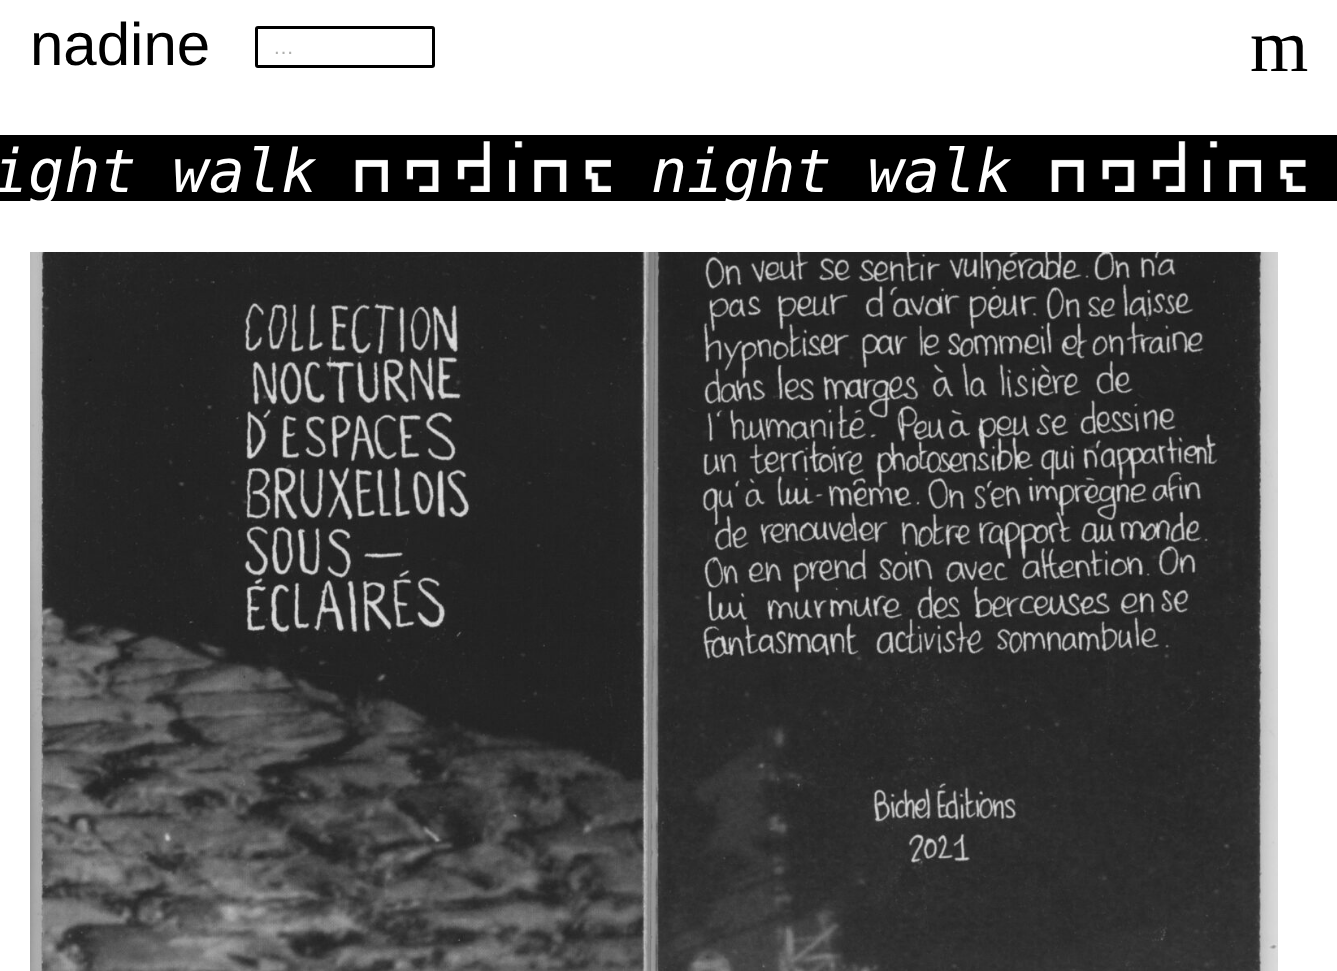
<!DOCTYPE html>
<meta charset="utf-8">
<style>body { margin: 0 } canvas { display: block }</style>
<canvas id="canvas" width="1337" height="971"></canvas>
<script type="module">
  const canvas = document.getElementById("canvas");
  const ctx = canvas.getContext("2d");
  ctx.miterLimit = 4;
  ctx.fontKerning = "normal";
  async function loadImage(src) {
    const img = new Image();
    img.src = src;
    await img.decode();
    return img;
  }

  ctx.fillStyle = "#ffffff";
  ctx.fillRect(0, 0, 1337, 971);
  ctx.font = "60px Liberation Sans";
  ctx.fillStyle = "#000000";
  ctx.fillText("nadine", 30, 65);
  ctx.beginPath();
  ctx.roundRect(256.5, 27.5, 177, 39, 1.5);
  ctx.strokeStyle = "#000000";
  ctx.lineWidth = 3;
  ctx.stroke();
  ctx.font = "21px Liberation Sans";
  ctx.fillStyle = "#afb0ae";
  ctx.fillText("…", 273, 54);
  ctx.font = "75px Liberation Serif";
  ctx.fillStyle = "#000000";
  ctx.fillText("m", 1250, 71);
  ctx.fillRect(0, 135, 1337, 66);
  ctx.save();
  ctx.beginPath();
  ctx.rect(0, 135, 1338, 66);
  ctx.clip();
  ctx.font = "italic 60px DejaVu Sans Mono";
  ctx.fillStyle = "#ffffff";
  ctx.fillText("ight walk", -8, 192);
  ctx.restore();
  ctx.drawImage(await loadImage("img1.png"), 355, 141, 256, 51);
  ctx.save();
  ctx.beginPath();
  ctx.rect(0, 135, 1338, 66);
  ctx.clip();
  ctx.font = "italic 60px DejaVu Sans Mono";
  ctx.fillStyle = "#ffffff";
  ctx.fillText("night walk", 651, 192);
  ctx.restore();
  ctx.drawImage(await loadImage("img2.png"), 1051, 141, 255, 51);
  ctx.drawImage(await loadImage("img3.png"), 30, 252, 1248, 719);
</script>
